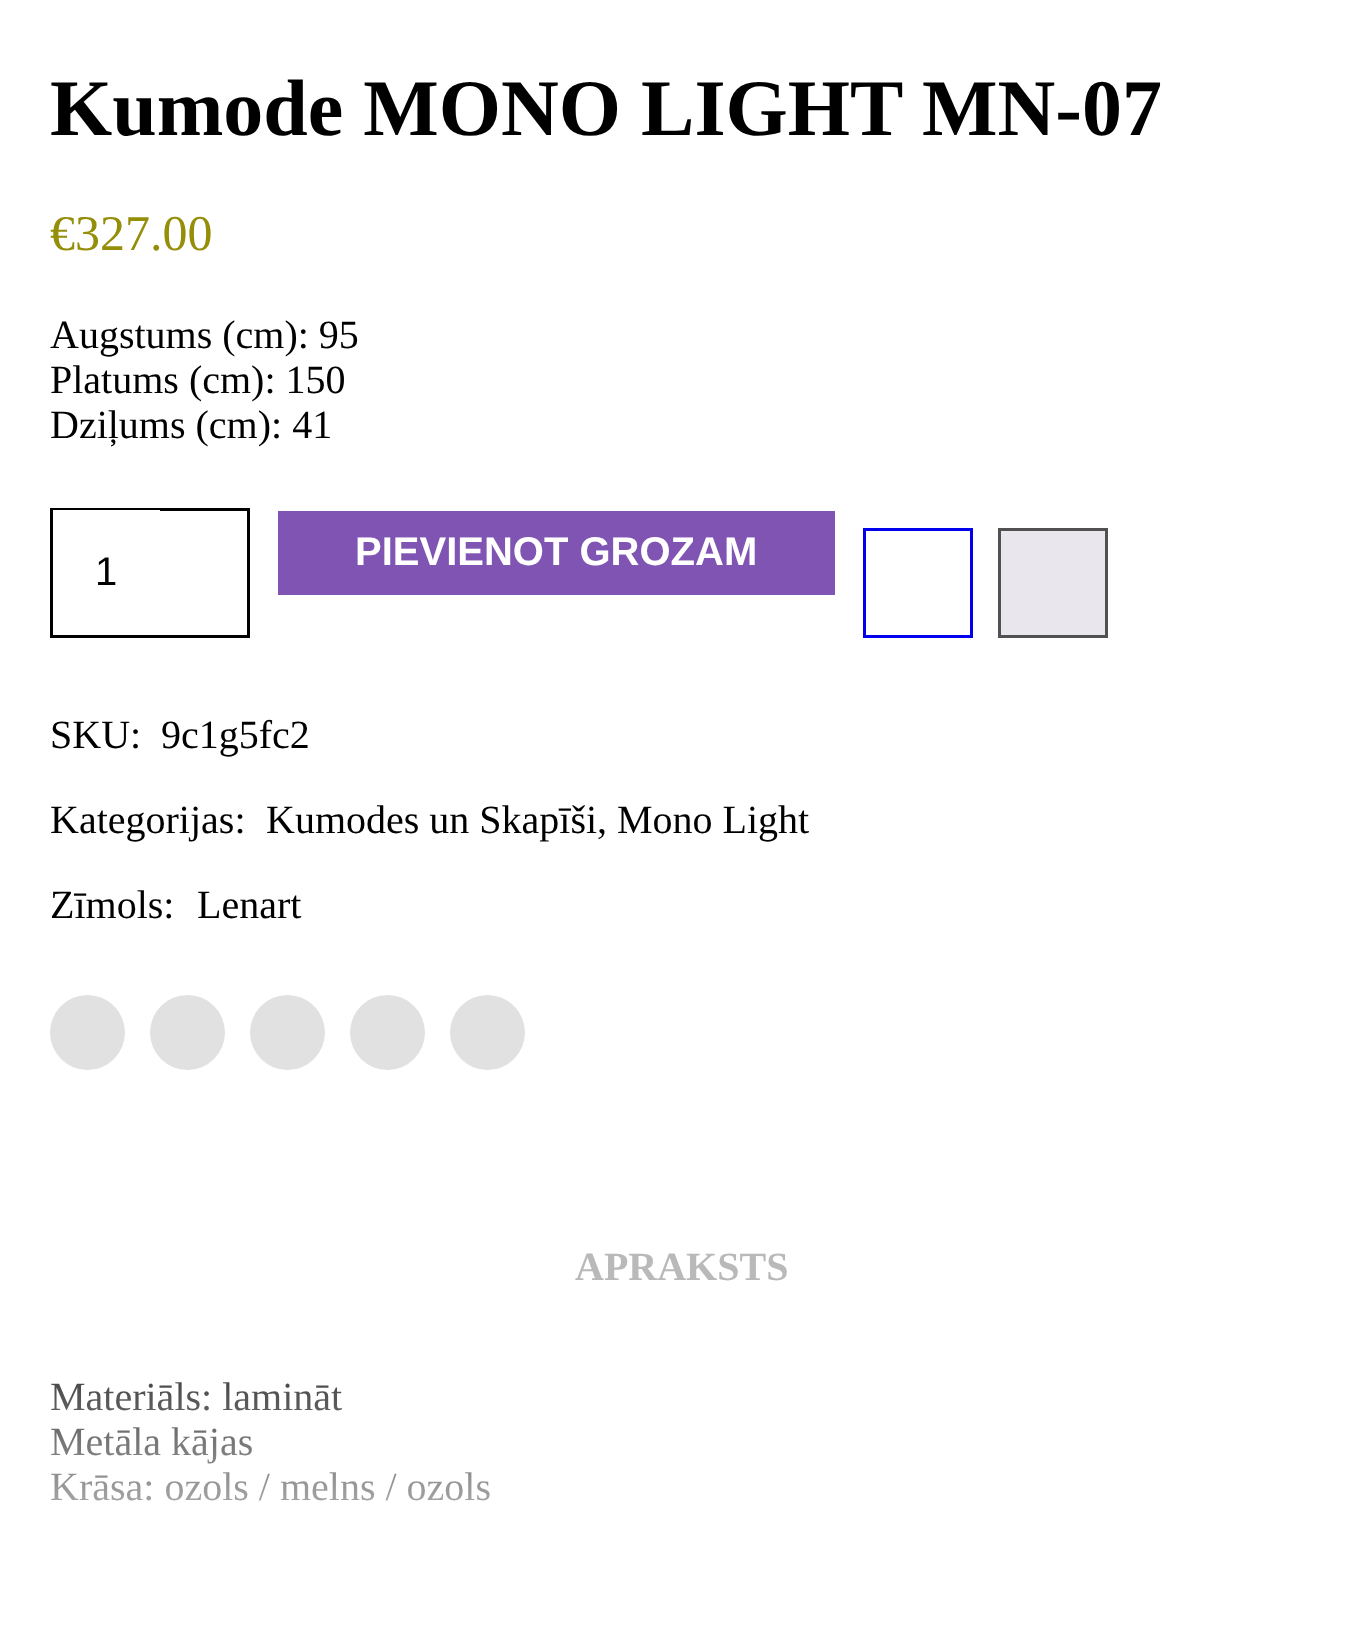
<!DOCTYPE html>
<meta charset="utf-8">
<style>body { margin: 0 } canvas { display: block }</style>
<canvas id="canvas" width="1361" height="1652"></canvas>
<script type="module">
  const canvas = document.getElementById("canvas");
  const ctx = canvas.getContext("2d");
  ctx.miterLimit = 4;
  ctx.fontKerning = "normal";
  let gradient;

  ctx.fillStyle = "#ffffff";
  ctx.fillRect(0, 0, 1361, 1652);
  ctx.font = "bold 80px Liberation Serif";
  ctx.fillStyle = "#000000";
  ctx.fillText("Kumode MONO LIGHT MN-07", 50, 135);
  ctx.font = "50px Liberation Serif";
  ctx.fillStyle = "#958e09";
  ctx.fillText("€327.00", 50, 250);
  ctx.font = "40px Liberation Serif";
  ctx.fillStyle = "#000000";
  ctx.fillText("Augstums (cm): 95", 50, 348);
  ctx.fillText("Platums (cm): 150", 50, 393);
  ctx.fillText("Dziļums (cm): 41", 50, 438);
  ctx.fillStyle = "#7f54b3";
  ctx.fillRect(278, 511, 557, 84);
  ctx.font = "bold 40px Liberation Sans";
  ctx.fillStyle = "#ffffff";
  ctx.fillText("PIEVIENOT GROZAM", 355, 565);
  ctx.strokeStyle = "#000000";
  ctx.lineWidth = 3;
  ctx.strokeRect(51.5, 509.5, 197, 127);
  ctx.fillRect(53, 510, 107, 1);
  ctx.font = "40px Liberation Sans";
  ctx.fillStyle = "#000000";
  ctx.fillText("1", 95, 585);
  ctx.strokeStyle = "#0000ee";
  ctx.strokeRect(864.5, 529.5, 107, 107);
  ctx.fillStyle = "#e9e6ed";
  ctx.beginPath();
  ctx.rect(999.5, 529.5, 107, 107);
  ctx.fill();
  ctx.strokeStyle = "#515151";
  ctx.stroke();
  ctx.font = "40px Liberation Serif";
  ctx.fillStyle = "#000000";
  ctx.fillText("SKU:", 50, 748);
  ctx.fillText("9c1g5fc2", 161, 748);
  ctx.fillText("Kategorijas:", 50, 833);
  ctx.fillText("Kumodes un Skapīši", 266, 833);
  ctx.fillText(", Mono Light", 597, 833);
  ctx.fillText("Zīmols:", 50, 918);
  ctx.fillText("Lenart", 197, 918);
  ctx.fillStyle = "#e1e1e1";
  ctx.beginPath();
  ctx.arc(87.5, 1032.5, 37.5, 0, Math.PI * 2);
  ctx.fill();
  ctx.beginPath();
  ctx.arc(187.5, 1032.5, 37.5, 0, Math.PI * 2);
  ctx.fill();
  ctx.beginPath();
  ctx.arc(287.5, 1032.5, 37.5, 0, Math.PI * 2);
  ctx.fill();
  ctx.beginPath();
  ctx.arc(387.5, 1032.5, 37.5, 0, Math.PI * 2);
  ctx.fill();
  ctx.beginPath();
  ctx.arc(487.5, 1032.5, 37.5, 0, Math.PI * 2);
  ctx.fill();
  ctx.font = "bold 40px Liberation Serif";
  ctx.fillStyle = "#b9b9b9";
  ctx.fillText("APRAKSTS", 575, 1280);
  ctx.font = "40px Liberation Serif";
  ctx.fillStyle = "#000000";
  ctx.fillText("Materiāls: lamināt", 50, 1410);
  ctx.fillText("Metāla kājas", 50, 1455);
  ctx.fillText("Krāsa: ozols / melns / ozols", 50, 1500);
  gradient = ctx.createLinearGradient(681, 1285, 681, 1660);
  gradient.addColorStop(0, "rgba(255, 255, 255, 0)");
  gradient.addColorStop(0.9, "#ffffff");
  ctx.fillStyle = gradient;
  ctx.fillRect(51, 1382, 439, 119);
</script>
